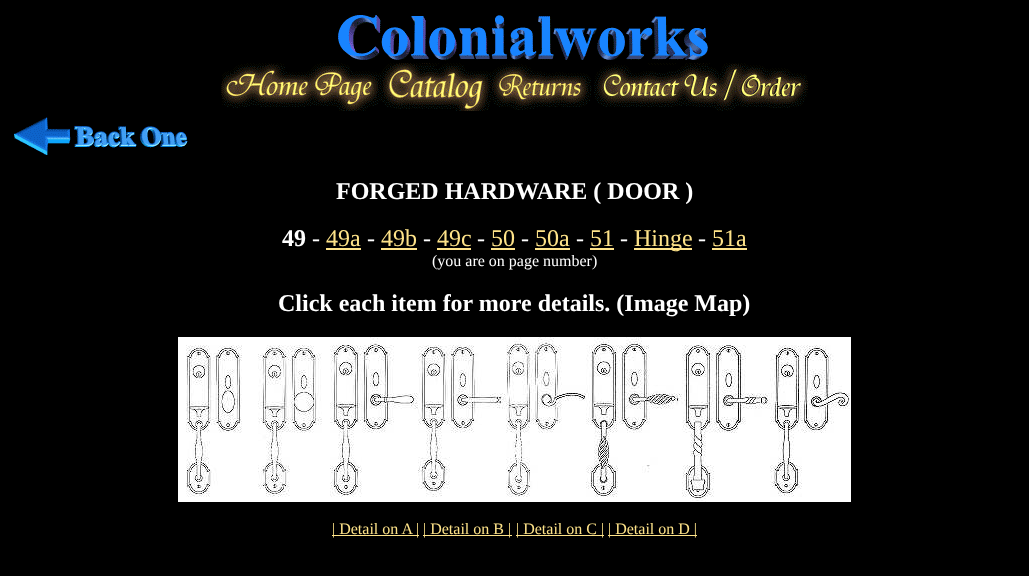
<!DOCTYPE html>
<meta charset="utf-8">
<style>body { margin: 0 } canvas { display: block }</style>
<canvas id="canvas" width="1029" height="576"></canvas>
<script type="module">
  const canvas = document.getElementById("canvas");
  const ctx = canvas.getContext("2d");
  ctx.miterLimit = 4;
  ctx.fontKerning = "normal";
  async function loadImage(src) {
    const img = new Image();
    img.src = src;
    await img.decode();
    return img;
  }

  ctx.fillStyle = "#000000";
  ctx.fillRect(0, 0, 1029, 576);
  ctx.drawImage(await loadImage("img1.png"), 221, 15, 587, 96);
  ctx.drawImage(await loadImage("img2.png"), 14, 117, 174, 38);
  ctx.font = "bold 24px Liberation Serif";
  ctx.fillStyle = "#ffffff";
  ctx.fillText("FORGED HARDWARE ( DOOR )", 336, 199);
  ctx.fillText("49", 282, 246);
  ctx.font = "24px Liberation Serif";
  ctx.fillText("-", 312, 246);
  ctx.fillStyle = "#fee389";
  ctx.fillText("49a", 326, 246);
  ctx.fillRect(326, 248, 35, 2);
  ctx.fillStyle = "#ffffff";
  ctx.fillText("-", 367, 246);
  ctx.fillStyle = "#fee389";
  ctx.fillText("49b", 381, 246);
  ctx.fillRect(381, 248, 36, 2);
  ctx.fillStyle = "#ffffff";
  ctx.fillText("-", 423, 246);
  ctx.fillStyle = "#fee389";
  ctx.fillText("49c", 437, 246);
  ctx.fillRect(437, 248, 34, 2);
  ctx.fillStyle = "#ffffff";
  ctx.fillText("-", 477, 246);
  ctx.fillStyle = "#fee389";
  ctx.fillText("50", 491, 246);
  ctx.fillRect(491, 248, 24, 2);
  ctx.fillStyle = "#ffffff";
  ctx.fillText("-", 521, 246);
  ctx.fillStyle = "#fee389";
  ctx.fillText("50a", 535, 246);
  ctx.fillRect(535, 248, 35, 2);
  ctx.fillStyle = "#ffffff";
  ctx.fillText("-", 576, 246);
  ctx.fillStyle = "#fee389";
  ctx.fillText("51", 590, 246);
  ctx.fillRect(590, 248, 24, 2);
  ctx.fillStyle = "#ffffff";
  ctx.fillText("-", 620, 246);
  ctx.fillStyle = "#fee389";
  ctx.fillRect(634, 248, 58, 2);
  ctx.fillText("Hinge", 634, 246);
  ctx.fillStyle = "#ffffff";
  ctx.fillText("-", 698, 246);
  ctx.fillStyle = "#fee389";
  ctx.fillText("51a", 712, 246);
  ctx.fillRect(712, 248, 35, 2);
  ctx.font = "16px Liberation Serif";
  ctx.fillStyle = "#ffffff";
  ctx.fillText("(you are on page number)", 432, 266);
  ctx.font = "bold 24px Liberation Serif";
  ctx.fillText("Click each item for more details. (Image Map)", 278, 311);
  ctx.drawImage(await loadImage("img3.png"), 178, 337, 673, 165);
  ctx.fillStyle = "#fee389";
  ctx.fillRect(332, 535, 87, 1);
  ctx.font = "16px Liberation Serif";
  ctx.fillText("| Detail on A |", 332, 534);
  ctx.fillRect(423, 535, 89, 1);
  ctx.fillText("| Detail on B |", 423, 534);
  ctx.fillRect(516, 535, 88, 1);
  ctx.fillText("| Detail on C |", 516, 534);
  ctx.fillRect(608, 535, 89, 1);
  ctx.fillText("| Detail on D |", 608, 534);
</script>
